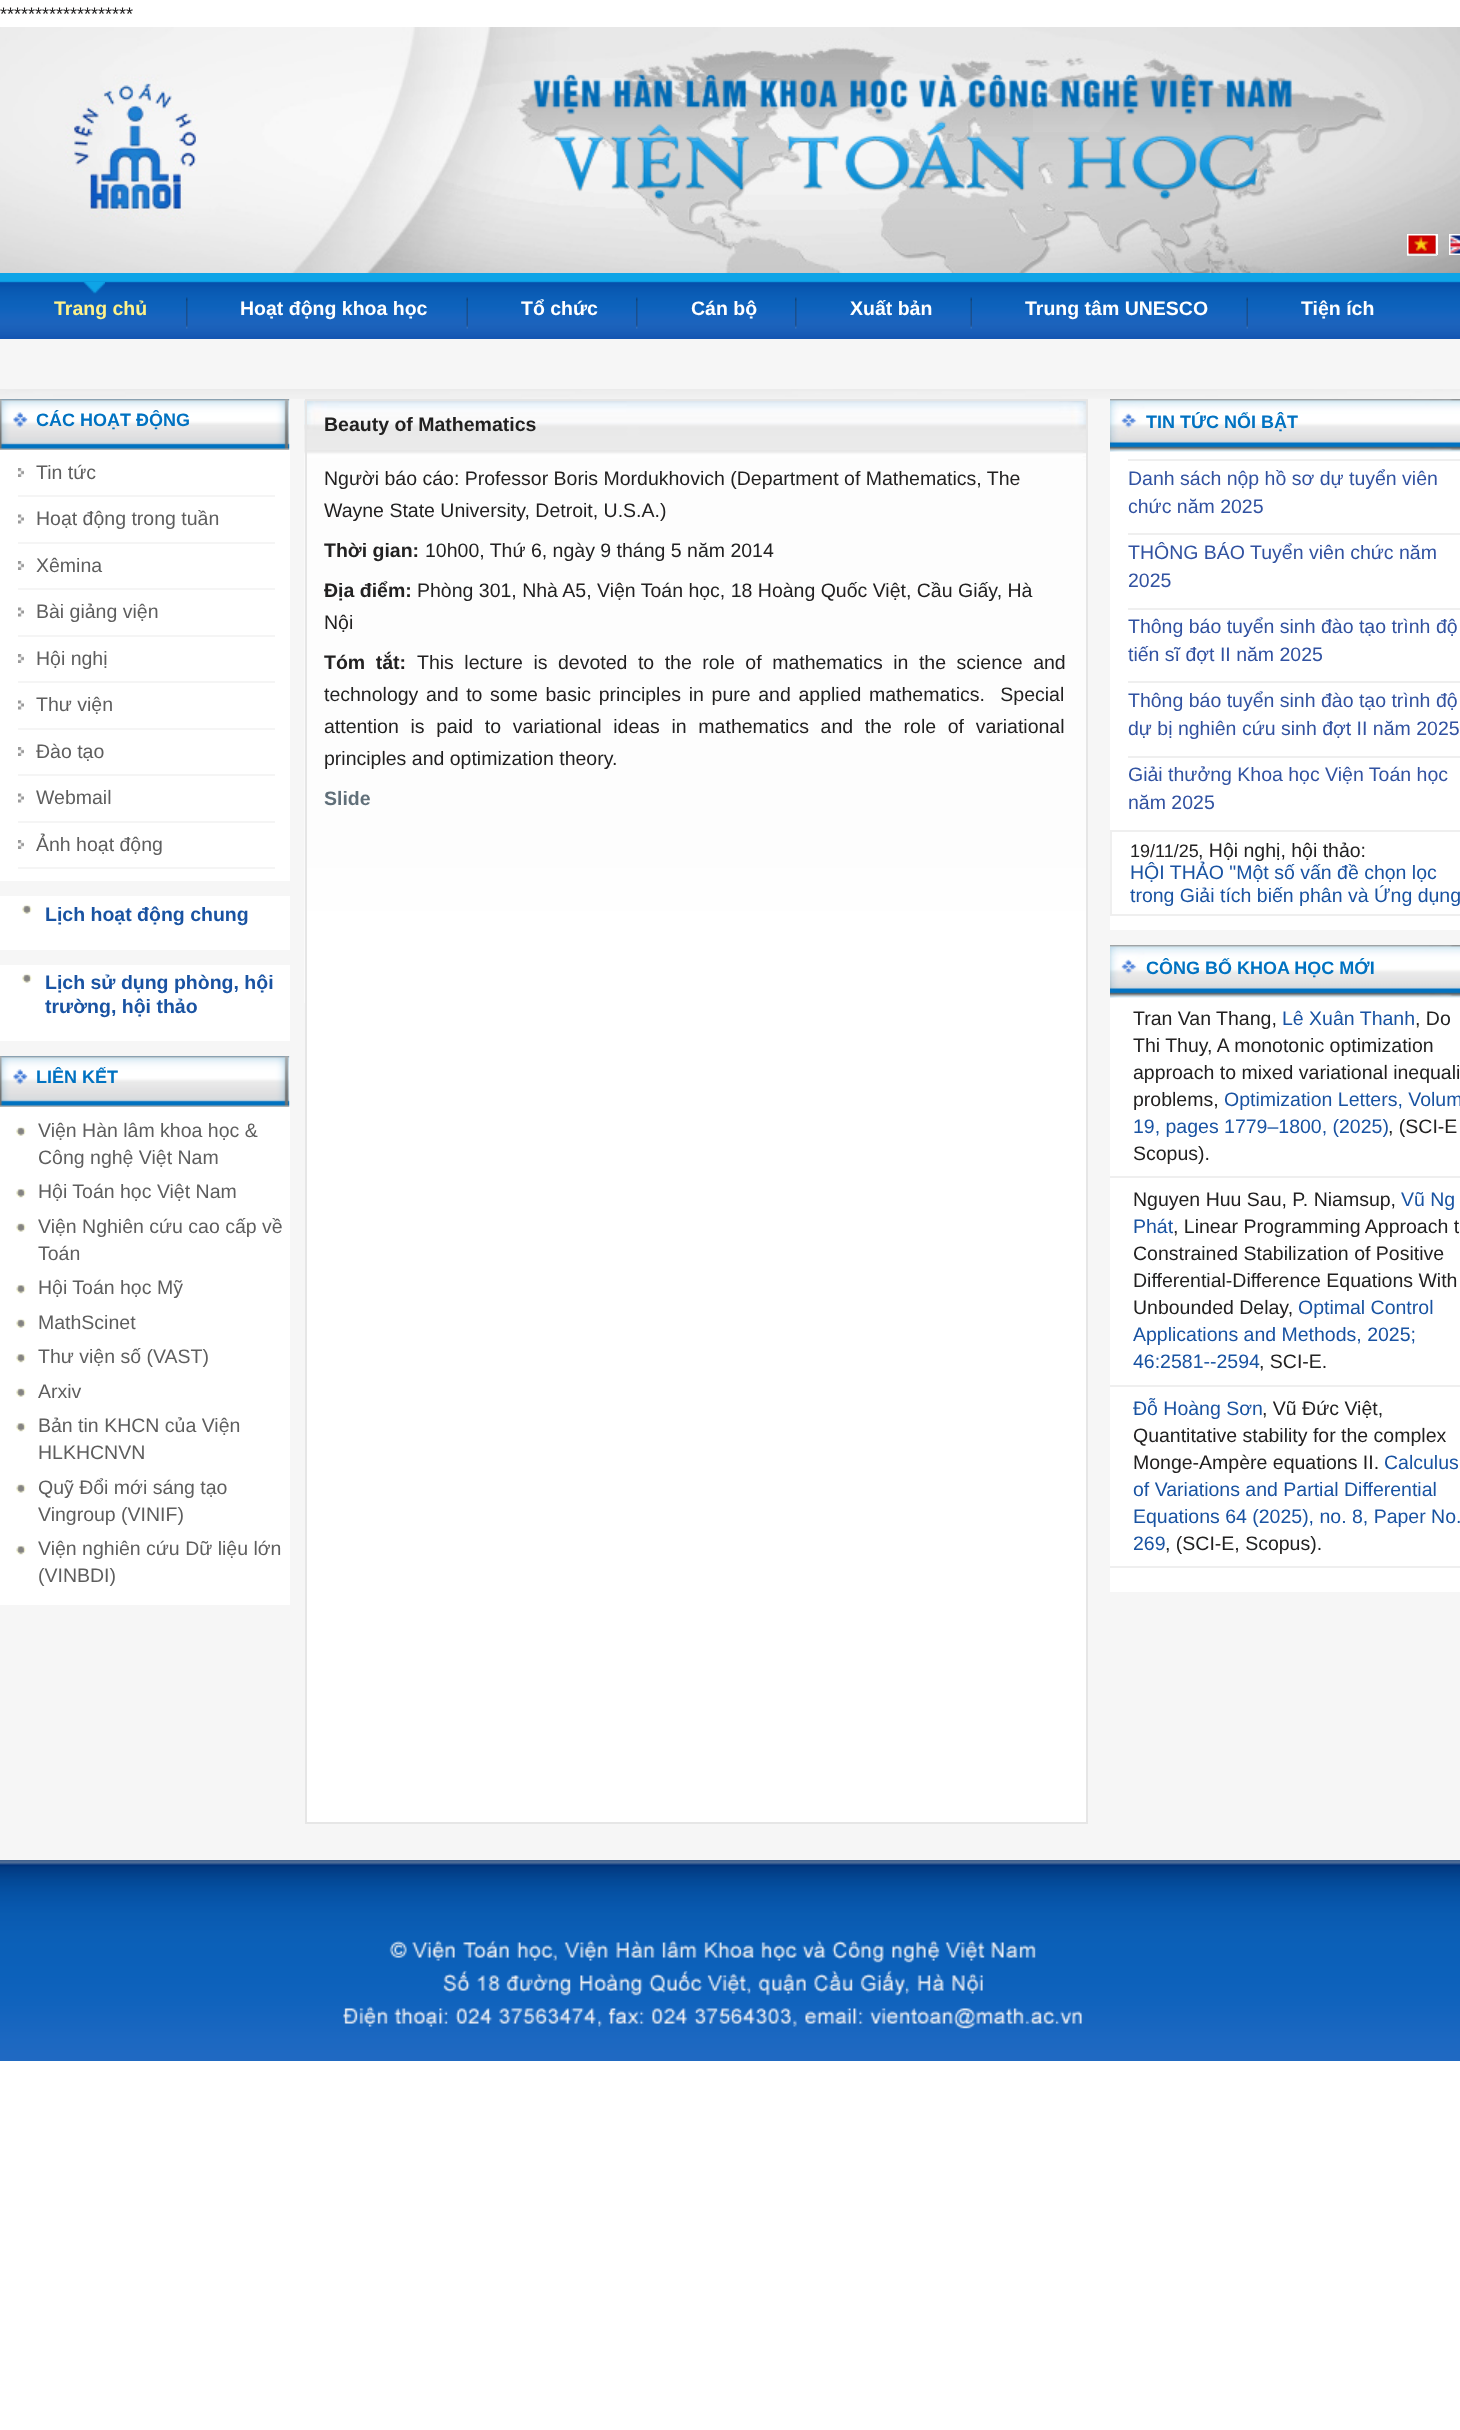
<!DOCTYPE html>
<meta charset="utf-8">
<style>body { margin: 0 } canvas { display: block }</style>
<canvas id="canvas" width="1460" height="2430"></canvas>
<script type="module">
  const canvas = document.getElementById("canvas");
  const ctx = canvas.getContext("2d");
  ctx.miterLimit = 4;
  ctx.fontKerning = "normal";
  async function loadImage(src) {
    const img = new Image();
    img.src = src;
    await img.decode();
    return img;
  }

  ctx.fillStyle = "#ffffff";
  ctx.fillRect(0, 0, 1460, 2430);
  ctx.font = "18px Liberation Sans";
  ctx.fillStyle = "#222121";
  ctx.fillText("*******************", 0, 20);
  ctx.drawImage(await loadImage("img1.png"), 0, 27, 1460, 372);
  ctx.drawImage(await loadImage("img2.png"), 1033, 59, 123, 73);
  ctx.drawImage(await loadImage("img3.png"), 533, 74, 759, 126);
  ctx.fillStyle = "#ffffff";
  ctx.fillRect(1407, 234, 30, 2);
  ctx.fillRect(1436, 234, 2, 21);
  ctx.fillStyle = "#eaeaea";
  ctx.fillRect(1407, 254, 30, 2);
  ctx.fillStyle = "#ffffff";
  ctx.fillRect(1407, 234, 2, 21);
  ctx.strokeStyle = "#ffffff";
  ctx.lineWidth = 2;
  ctx.strokeRect(1450, 235, 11, 19);
  ctx.drawImage(await loadImage("img4.png"), 1408, 235, 28, 19);
  ctx.drawImage(await loadImage("img5.png"), 1450, 235, 10, 19);
  ctx.drawImage(await loadImage("img6.png"), 0, 273, 1460, 66);
  ctx.drawImage(await loadImage("img7.png"), 83, 282, 22, 12);
  ctx.font = "bold 19.5px Liberation Sans";
  ctx.fillStyle = "#fef288";
  ctx.fillText("Trang chủ", 54, 315);
  ctx.drawImage(await loadImage("img8.png"), 186, 297, 2, 32);
  ctx.fillStyle = "#ffffff";
  ctx.fillText("Hoạt động khoa học", 240, 315);
  ctx.drawImage(await loadImage("img9.png"), 466, 297, 2, 32);
  ctx.fillText("Tổ chức", 521, 315);
  ctx.drawImage(await loadImage("img8.png"), 636, 297, 2, 32);
  ctx.fillText("Cán bộ", 691, 315);
  ctx.drawImage(await loadImage("img8.png"), 795, 297, 2, 32);
  ctx.fillText("Xuất bản", 850, 315);
  ctx.drawImage(await loadImage("img9.png"), 970, 297, 2, 32);
  ctx.fillText("Trung tâm UNESCO", 1025, 315);
  ctx.drawImage(await loadImage("img9.png"), 1246, 297, 2, 32);
  ctx.fillText("Tiện ích", 1301, 315);
  ctx.fillStyle = "#f6f6f6";
  ctx.fillRect(0, 339, 1460, 50);
  ctx.fillRect(0, 399, 1460, 1461);
  ctx.fillStyle = "#ffffff";
  ctx.fillRect(0, 399, 290, 482);
  ctx.drawImage(await loadImage("img10.png"), 0, 399, 290, 51);
  ctx.font = "bold 18px Liberation Sans";
  ctx.fillStyle = "#0072c1";
  ctx.fillText("CÁC HOẠT ĐỘNG", 36, 426);
  ctx.drawImage(await loadImage("img11.png"), 18, 468, 6, 9);
  ctx.fillStyle = "#f5f5f5";
  ctx.fillRect(18, 495, 257, 2);
  ctx.font = "19.5px Liberation Sans";
  ctx.fillStyle = "#5e5e5e";
  ctx.fillText("Tin tức", 36, 479);
  ctx.drawImage(await loadImage("img12.png"), 18, 514, 6, 10);
  ctx.fillStyle = "#f5f5f5";
  ctx.fillRect(18, 542, 257, 2);
  ctx.fillStyle = "#5e5e5e";
  ctx.fillText("Hoạt động trong tuần", 36, 525);
  ctx.drawImage(await loadImage("img11.png"), 18, 561, 6, 9);
  ctx.fillStyle = "#f5f5f5";
  ctx.fillRect(18, 588, 257, 2);
  ctx.fillStyle = "#5e5e5e";
  ctx.fillText("Xêmina", 36, 572);
  ctx.drawImage(await loadImage("img12.png"), 18, 607, 6, 10);
  ctx.fillStyle = "#f5f5f5";
  ctx.fillRect(18, 635, 257, 2);
  ctx.fillStyle = "#5e5e5e";
  ctx.fillText("Bài giảng viện", 36, 618);
  ctx.drawImage(await loadImage("img11.png"), 18, 654, 6, 9);
  ctx.fillStyle = "#f5f5f5";
  ctx.fillRect(18, 681, 257, 2);
  ctx.fillStyle = "#5e5e5e";
  ctx.fillText("Hội nghị", 36, 665);
  ctx.drawImage(await loadImage("img12.png"), 18, 700, 6, 10);
  ctx.fillStyle = "#f5f5f5";
  ctx.fillRect(18, 728, 257, 2);
  ctx.fillStyle = "#5e5e5e";
  ctx.fillText("Thư viện", 36, 711);
  ctx.drawImage(await loadImage("img11.png"), 18, 747, 6, 9);
  ctx.fillStyle = "#f5f5f5";
  ctx.fillRect(18, 774, 257, 2);
  ctx.fillStyle = "#5e5e5e";
  ctx.fillText("Đào tạo", 36, 758);
  ctx.drawImage(await loadImage("img12.png"), 18, 793, 6, 10);
  ctx.fillStyle = "#f5f5f5";
  ctx.fillRect(18, 821, 257, 2);
  ctx.fillStyle = "#5e5e5e";
  ctx.fillText("Webmail", 36, 804);
  ctx.drawImage(await loadImage("img11.png"), 18, 840, 6, 9);
  ctx.fillStyle = "#f5f5f5";
  ctx.fillRect(18, 867, 257, 2);
  ctx.fillStyle = "#5e5e5e";
  ctx.fillText("Ảnh hoạt động", 36, 851);
  ctx.fillStyle = "#ffffff";
  ctx.fillRect(0, 896, 290, 54);
  ctx.drawImage(await loadImage("img13.png"), 22, 904, 10, 10);
  ctx.font = "bold 19.5px Liberation Sans";
  ctx.fillStyle = "#1953a2";
  ctx.fillText("Lịch hoạt động chung", 45, 921);
  ctx.fillStyle = "#ffffff";
  ctx.fillRect(0, 965, 290, 76);
  ctx.drawImage(await loadImage("img13.png"), 22, 973, 10, 10);
  ctx.fillStyle = "#1953a2";
  ctx.fillText("Lịch sử dụng phòng, hội", 45, 989);
  ctx.fillText("trường, hội thảo", 45, 1013);
  ctx.fillStyle = "#ffffff";
  ctx.fillRect(0, 1056, 290, 549);
  ctx.drawImage(await loadImage("img10.png"), 0, 1056, 290, 51);
  ctx.font = "bold 18px Liberation Sans";
  ctx.fillStyle = "#0072c1";
  ctx.fillText("LIÊN KẾT", 36, 1083);
  ctx.drawImage(await loadImage("img13.png"), 16, 1126, 10, 10);
  ctx.font = "19.5px Liberation Sans";
  ctx.fillStyle = "#5e5e5e";
  ctx.fillText("Viện Hàn lâm khoa học &", 38, 1137);
  ctx.fillText("Công nghệ Việt Nam", 38, 1164);
  ctx.drawImage(await loadImage("img14.png"), 16, 1188, 10, 10);
  ctx.fillText("Hội Toán học Việt Nam", 38, 1198);
  ctx.drawImage(await loadImage("img13.png"), 16, 1222, 10, 10);
  ctx.fillText("Viện Nghiên cứu cao cấp về", 38, 1233);
  ctx.fillText("Toán", 38, 1260);
  ctx.drawImage(await loadImage("img14.png"), 16, 1284, 10, 10);
  ctx.fillText("Hội Toán học Mỹ", 38, 1294);
  ctx.drawImage(await loadImage("img13.png"), 16, 1318, 10, 10);
  ctx.fillText("MathScinet", 38, 1329);
  ctx.drawImage(await loadImage("img14.png"), 16, 1353, 10, 10);
  ctx.fillText("Thư viện số (VAST)", 38, 1363);
  ctx.drawImage(await loadImage("img13.png"), 16, 1387, 10, 10);
  ctx.fillText("Arxiv", 38, 1398);
  ctx.drawImage(await loadImage("img14.png"), 16, 1422, 10, 10);
  ctx.fillText("Bản tin KHCN của Viện", 38, 1432);
  ctx.fillText("HLKHCNVN", 38, 1459);
  ctx.drawImage(await loadImage("img13.png"), 16, 1483, 10, 10);
  ctx.fillText("Quỹ Đổi mới sáng tạo", 38, 1494);
  ctx.fillText("Vingroup (VINIF)", 38, 1521);
  ctx.drawImage(await loadImage("img14.png"), 16, 1545, 10, 10);
  ctx.fillText("Viện nghiên cứu Dữ liệu lớn", 38, 1555);
  ctx.fillText("(VINBDI)", 38, 1582);
  ctx.fillStyle = "#ffffff";
  ctx.fillRect(307, 1003, 779, 819);
  ctx.drawImage(await loadImage("img15.png"), 304, 400, 782, 603);
  ctx.strokeStyle = "#e6e6e6";
  ctx.strokeRect(306, 400, 781, 1423);
  ctx.font = "bold 19.5px Liberation Sans";
  ctx.fillStyle = "#222121";
  ctx.fillText("Beauty of Mathematics", 324, 431);
  ctx.font = "19.5px Liberation Sans";
  ctx.fillText("Người báo cáo: Professor Boris Mordukhovich (Department of Mathematics, The", 324, 485);
  ctx.fillText("Wayne State University, Detroit, U.S.A.)", 324, 517);
  ctx.font = "bold 19.5px Liberation Sans";
  ctx.fillText("Thời gian:", 324, 557);
  ctx.font = "19.5px Liberation Sans";
  ctx.fillText("10h00, Thứ 6, ngày 9 tháng 5 năm 2014", 425, 557);
  ctx.font = "bold 19.5px Liberation Sans";
  ctx.fillText("Địa điểm:", 324, 597);
  ctx.font = "19.5px Liberation Sans";
  ctx.fillText("Phòng 301, Nhà A5, Viện Toán học, 18 Hoàng Quốc Việt, Cầu Giấy, Hà", 417, 597);
  ctx.fillText("Nội", 324, 629);
  ctx.wordSpacing = "5.1px";
  ctx.font = "bold 19.5px Liberation Sans";
  ctx.fillText("Tóm tắt:", 324, 669);
  ctx.font = "19.5px Liberation Sans";
  ctx.fillText("This lecture is devoted to the role of mathematics in the science and", 417, 669);
  ctx.wordSpacing = "2.25px";
  ctx.fillText("technology and to some basic principles in pure and applied mathematics.  Special", 324, 701);
  ctx.wordSpacing = "6.25px";
  ctx.fillText("attention is paid to variational ideas in mathematics and the role of variational", 324, 733);
  ctx.wordSpacing = "0px";
  ctx.fillText("principles and optimization theory.", 324, 765);
  ctx.font = "bold 19.5px Liberation Sans";
  ctx.fillStyle = "#606f79";
  ctx.fillText("Slide", 324, 805);
  ctx.fillStyle = "#ffffff";
  ctx.fillRect(1110, 451, 350, 379);
  ctx.drawImage(await loadImage("img16.png"), 1110, 399, 350, 53);
  ctx.font = "bold 18px Liberation Sans";
  ctx.fillStyle = "#0072c1";
  ctx.fillText("TIN TỨC NỔI BẬT", 1146, 428);
  ctx.fillStyle = "#efefef";
  ctx.fillRect(1128, 459, 332, 2);
  ctx.font = "19.5px Liberation Sans";
  ctx.fillStyle = "#3152a1";
  ctx.fillText("Danh sách nộp hồ sơ dự tuyển viên", 1128, 485);
  ctx.fillText("chức năm 2025", 1128, 513);
  ctx.fillStyle = "#efefef";
  ctx.fillRect(1128, 533, 332, 2);
  ctx.fillStyle = "#3152a1";
  ctx.fillText("THÔNG BÁO Tuyển viên chức năm", 1128, 559);
  ctx.fillText("2025", 1128, 587);
  ctx.fillStyle = "#efefef";
  ctx.fillRect(1128, 608, 332, 2);
  ctx.fillStyle = "#3152a1";
  ctx.fillText("Thông báo tuyển sinh đào tạo trình độ", 1128, 633);
  ctx.fillText("tiến sĩ đợt II năm 2025", 1128, 661);
  ctx.fillStyle = "#efefef";
  ctx.fillRect(1128, 681, 332, 2);
  ctx.fillStyle = "#3152a1";
  ctx.fillText("Thông báo tuyển sinh đào tạo trình độ", 1128, 707);
  ctx.fillText("dự bị nghiên cứu sinh đợt II năm 2025", 1128, 735);
  ctx.fillStyle = "#efefef";
  ctx.fillRect(1128, 756, 332, 2);
  ctx.fillStyle = "#3152a1";
  ctx.fillText("Giải thưởng Khoa học Viện Toán học", 1128, 781);
  ctx.fillText("năm 2025", 1128, 809);
  ctx.fillStyle = "#ffffff";
  ctx.fillRect(1110, 832, 350, 98);
  ctx.fillStyle = "#efefef";
  ctx.fillRect(1110, 830, 350, 2);
  ctx.fillRect(1110, 914, 350, 2);
  ctx.fillRect(1110, 830, 2, 85);
  ctx.font = "18px Liberation Sans";
  ctx.fillStyle = "#222121";
  ctx.fillText("19/11/25", 1130, 857);
  ctx.font = "19.5px Liberation Sans";
  ctx.fillText(", Hội nghị, hội thảo:", 1198, 857);
  ctx.fillStyle = "#1953a2";
  ctx.fillText("HỘI THẢO \"Một số vấn đề chọn lọc", 1130, 879);
  ctx.fillText("trong Giải tích biến phân và Ứng dụng", 1130, 902);
  ctx.fillStyle = "#ffffff";
  ctx.fillRect(1110, 997, 350, 595);
  ctx.drawImage(await loadImage("img17.png"), 1110, 945, 350, 53);
  ctx.font = "bold 18px Liberation Sans";
  ctx.fillStyle = "#0072c1";
  ctx.fillText("CÔNG BỐ KHOA HỌC MỚI", 1146, 974);
  ctx.fillStyle = "#efefef";
  ctx.fillRect(1110, 1176, 350, 2);
  ctx.font = "19.5px Liberation Sans";
  ctx.fillStyle = "#222121";
  ctx.fillText("Tran Van Thang,", 1133, 1025);
  ctx.fillStyle = "#1953a2";
  ctx.fillText("Lê Xuân Thanh", 1282, 1025);
  ctx.fillStyle = "#222121";
  ctx.fillText(", Do", 1415, 1025);
  ctx.fillText("Thi Thuy, A monotonic optimization", 1133, 1052);
  ctx.fillText("approach to mixed variational inequali", 1133, 1079);
  ctx.fillText("problems,", 1133, 1106);
  ctx.fillStyle = "#1953a2";
  ctx.fillText("Optimization Letters, Volum", 1224, 1106);
  ctx.fillText("19, pages 1779–1800, (2025)", 1133, 1133);
  ctx.fillStyle = "#222121";
  ctx.fillText(", (SCI-E", 1388, 1133);
  ctx.fillText("Scopus).", 1133, 1160);
  ctx.fillStyle = "#efefef";
  ctx.fillRect(1110, 1385, 350, 2);
  ctx.fillStyle = "#222121";
  ctx.fillText("Nguyen Huu Sau, P. Niamsup,", 1133, 1206);
  ctx.fillStyle = "#1953a2";
  ctx.fillText("Vũ Ng", 1401, 1206);
  ctx.fillText("Phát", 1133, 1233);
  ctx.fillStyle = "#222121";
  ctx.fillText(", Linear Programming Approach t", 1173, 1233);
  ctx.fillText("Constrained Stabilization of Positive", 1133, 1260);
  ctx.fillText("Differential-Difference Equations With", 1133, 1287);
  ctx.fillText("Unbounded Delay,", 1133, 1314);
  ctx.fillStyle = "#1953a2";
  ctx.fillText("Optimal Control", 1298, 1314);
  ctx.fillText("Applications and Methods, 2025;", 1133, 1341);
  ctx.fillText("46:2581--2594", 1133, 1368);
  ctx.fillStyle = "#222121";
  ctx.fillText(", SCI-E.", 1259, 1368);
  ctx.fillStyle = "#efefef";
  ctx.fillRect(1110, 1566, 350, 2);
  ctx.fillStyle = "#1953a2";
  ctx.fillText("Đỗ Hoàng Sơn", 1133, 1415);
  ctx.fillStyle = "#222121";
  ctx.fillText(", Vũ Đức Việt,", 1262, 1415);
  ctx.fillText("Quantitative stability for the complex", 1133, 1442);
  ctx.fillText("Monge-Ampère equations II.", 1133, 1469);
  ctx.fillStyle = "#1953a2";
  ctx.fillText("Calculus", 1384, 1469);
  ctx.fillText("of Variations and Partial Differential", 1133, 1496);
  ctx.fillText("Equations 64 (2025), no. 8, Paper No.", 1133, 1523);
  ctx.fillText("269", 1133, 1550);
  ctx.fillStyle = "#222121";
  ctx.fillText(", (SCI-E, Scopus).", 1165, 1550);
  ctx.drawImage(await loadImage("img18.png"), 0, 1860, 1460, 201);
  ctx.drawImage(await loadImage("img19.png"), 343, 1940, 739, 89);
</script>
